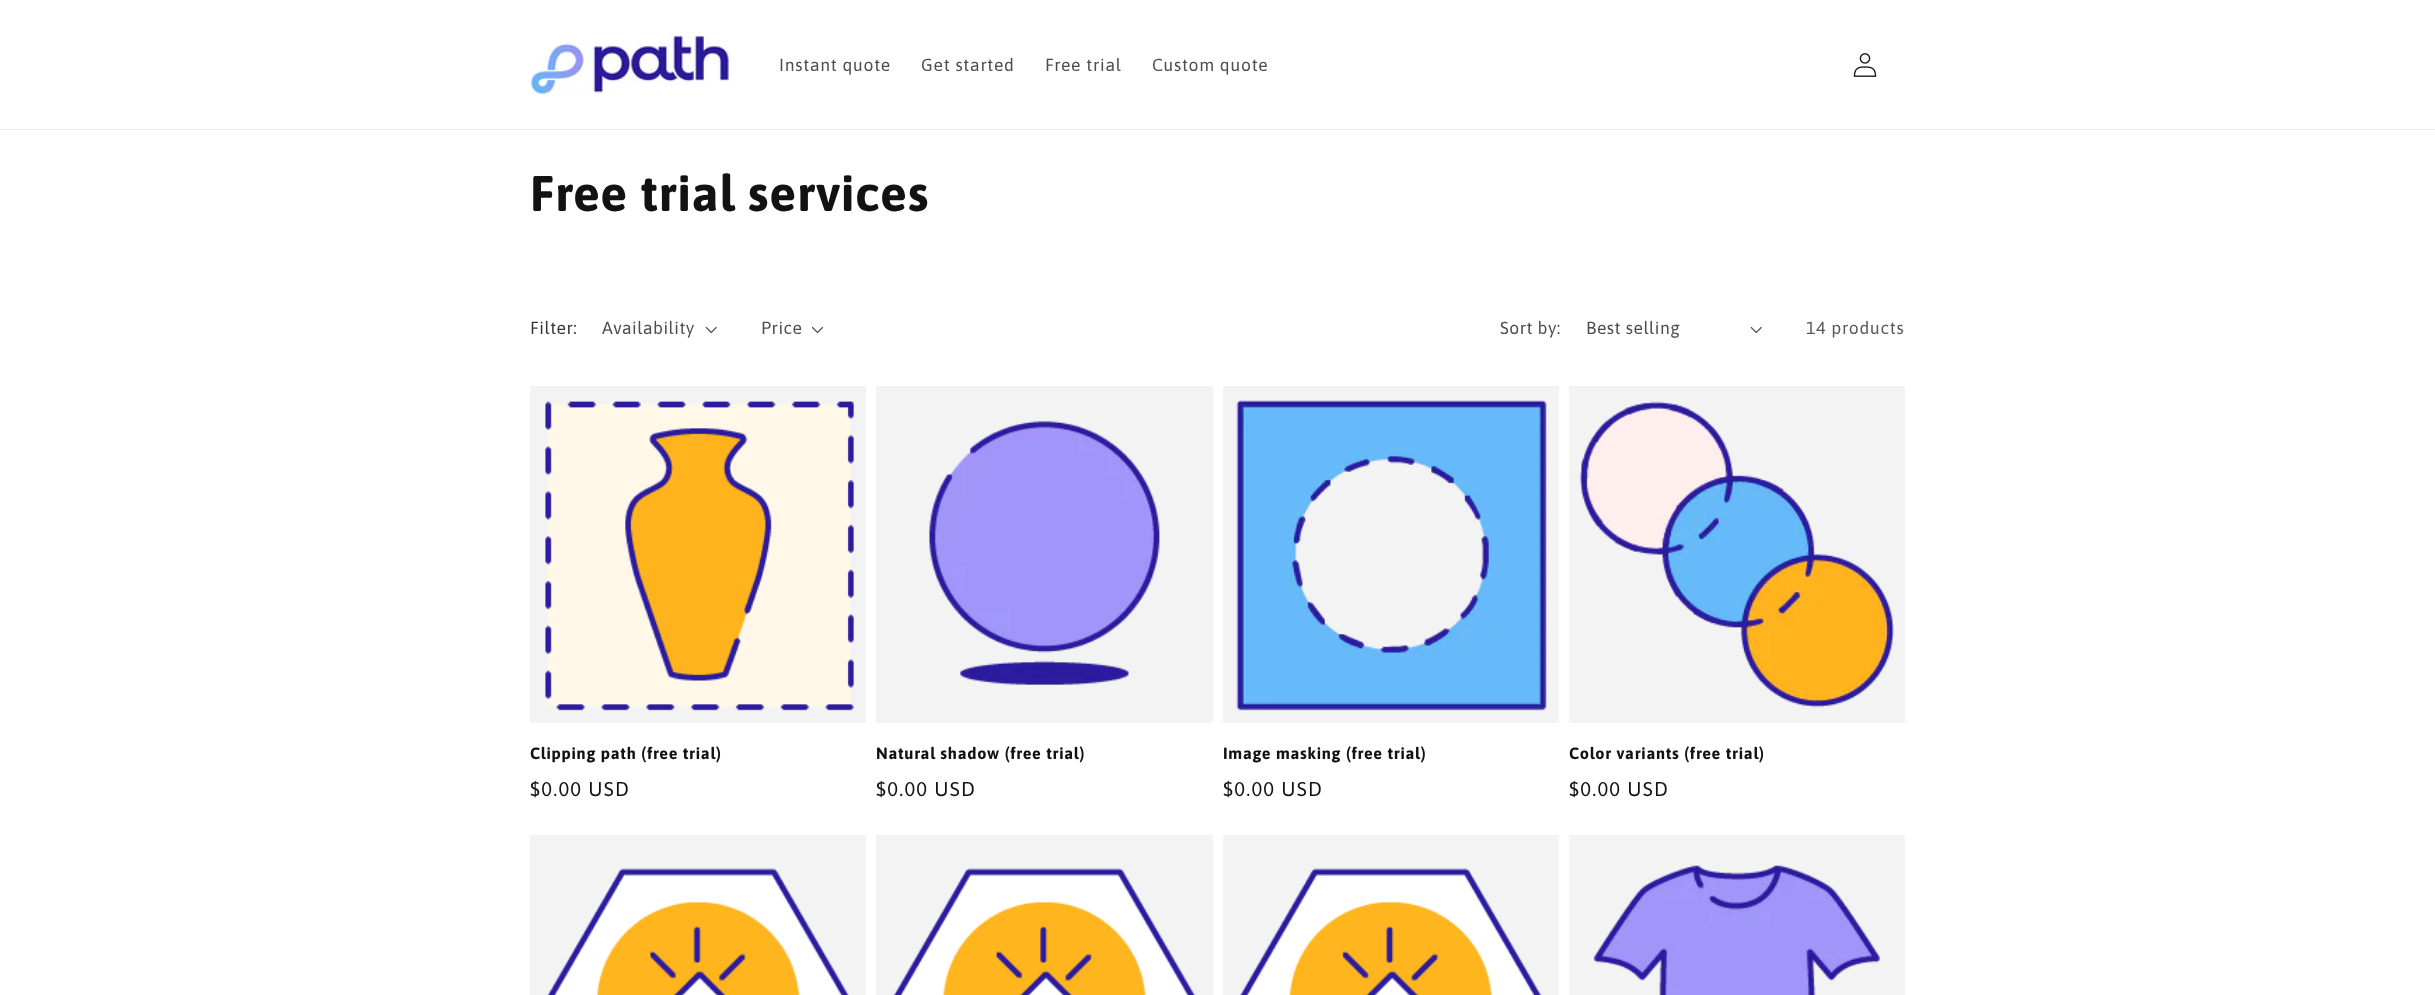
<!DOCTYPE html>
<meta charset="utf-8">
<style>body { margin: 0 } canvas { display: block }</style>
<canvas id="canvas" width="2435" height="995"></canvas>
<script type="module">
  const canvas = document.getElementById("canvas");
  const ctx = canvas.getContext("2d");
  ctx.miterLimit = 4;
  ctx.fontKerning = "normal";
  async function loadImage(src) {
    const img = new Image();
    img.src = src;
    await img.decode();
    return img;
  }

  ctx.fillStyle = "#ffffff";
  ctx.fillRect(0, 0, 2435, 995);
  ctx.fillStyle = "#ececec";
  ctx.fillRect(0, 129, 2435, 1);
  ctx.drawImage(await loadImage("img1.png"), 530, 35, 200, 60);
  ctx.letterSpacing = "0.75px";
  ctx.font = "17.5px Asap";
  ctx.fillStyle = "#4d4d4d";
  ctx.fillText("Instant quote", 779, 71);
  ctx.fillText("Get started", 921, 71);
  ctx.fillText("Free trial", 1045, 71);
  ctx.fillText("Custom quote", 1152, 71);
  ctx.drawImage(await loadImage("img2.png"), 1853, 53, 24, 24);
  ctx.font = "bold 50px Asap";
  ctx.fillStyle = "#121212";
  ctx.fillText("Free trial services", 530, 211);
  ctx.letterSpacing = "0.5px";
  ctx.font = "17.5px Asap";
  ctx.fillStyle = "#363636";
  ctx.fillText("Filter:", 530, 334);
  ctx.fillStyle = "#4d4d4d";
  ctx.fillText("Availability", 602, 334);
  ctx.drawImage(await loadImage("img3.png"), 705, 326, 12, 8);
  ctx.fillText("Price", 761, 334);
  ctx.drawImage(await loadImage("img4.png"), 811, 326, 13, 8);
  ctx.fillText("Sort by:", 1500, 334);
  ctx.fillText("Best selling", 1586, 334);
  ctx.drawImage(await loadImage("img3.png"), 1750, 326, 12, 8);
  ctx.letterSpacing = "0.75px";
  ctx.fillStyle = "#595959";
  ctx.fillText("14 products", 1806, 334);
  ctx.fillStyle = "#f3f3f3";
  ctx.fillRect(530, 386, 336, 337);
  ctx.drawImage(await loadImage("img5.png"), 545, 401, 309, 310);
  ctx.font = "bold 16.25px Asap";
  ctx.fillStyle = "#121212";
  ctx.fillText("Clipping path (free trial)", 530, 759);
  ctx.letterSpacing = "1.25px";
  ctx.font = "20px Asap";
  ctx.fillText("$0.00 USD", 530, 796);
  ctx.fillStyle = "#f3f3f3";
  ctx.fillRect(876, 386, 337, 337);
  ctx.drawImage(await loadImage("img6.png"), 929, 421, 231, 264);
  ctx.letterSpacing = "0.75px";
  ctx.font = "bold 16.25px Asap";
  ctx.fillStyle = "#121212";
  ctx.fillText("Natural shadow (free trial)", 876, 759);
  ctx.letterSpacing = "1.25px";
  ctx.font = "20px Asap";
  ctx.fillText("$0.00 USD", 876, 796);
  ctx.fillStyle = "#f3f3f3";
  ctx.fillRect(1223, 386, 336, 337);
  ctx.drawImage(await loadImage("img7.png"), 1236, 400, 311, 311);
  ctx.letterSpacing = "0.75px";
  ctx.font = "bold 16.25px Asap";
  ctx.fillStyle = "#121212";
  ctx.fillText("Image masking (free trial)", 1223, 759);
  ctx.letterSpacing = "1.25px";
  ctx.font = "20px Asap";
  ctx.fillText("$0.00 USD", 1223, 796);
  ctx.fillStyle = "#f3f3f3";
  ctx.fillRect(1569, 386, 336, 337);
  ctx.drawImage(await loadImage("img8.png"), 1579, 401, 315, 307);
  ctx.letterSpacing = "0.75px";
  ctx.font = "bold 16.25px Asap";
  ctx.fillStyle = "#121212";
  ctx.fillText("Color variants (free trial)", 1569, 759);
  ctx.letterSpacing = "1.25px";
  ctx.font = "20px Asap";
  ctx.fillText("$0.00 USD", 1569, 796);
  ctx.fillStyle = "#f3f3f3";
  ctx.fillRect(530, 835, 336, 160);
  ctx.drawImage(await loadImage("img9.png"), 547, 868, 303, 127);
  ctx.fillRect(876, 835, 337, 160);
  ctx.drawImage(await loadImage("img10.png"), 893, 868, 303, 127);
  ctx.fillRect(1223, 835, 336, 160);
  ctx.drawImage(await loadImage("img11.png"), 1239, 868, 303, 127);
  ctx.fillRect(1569, 835, 336, 160);
  ctx.drawImage(await loadImage("img12.png"), 1593, 865, 287, 130);
</script>
